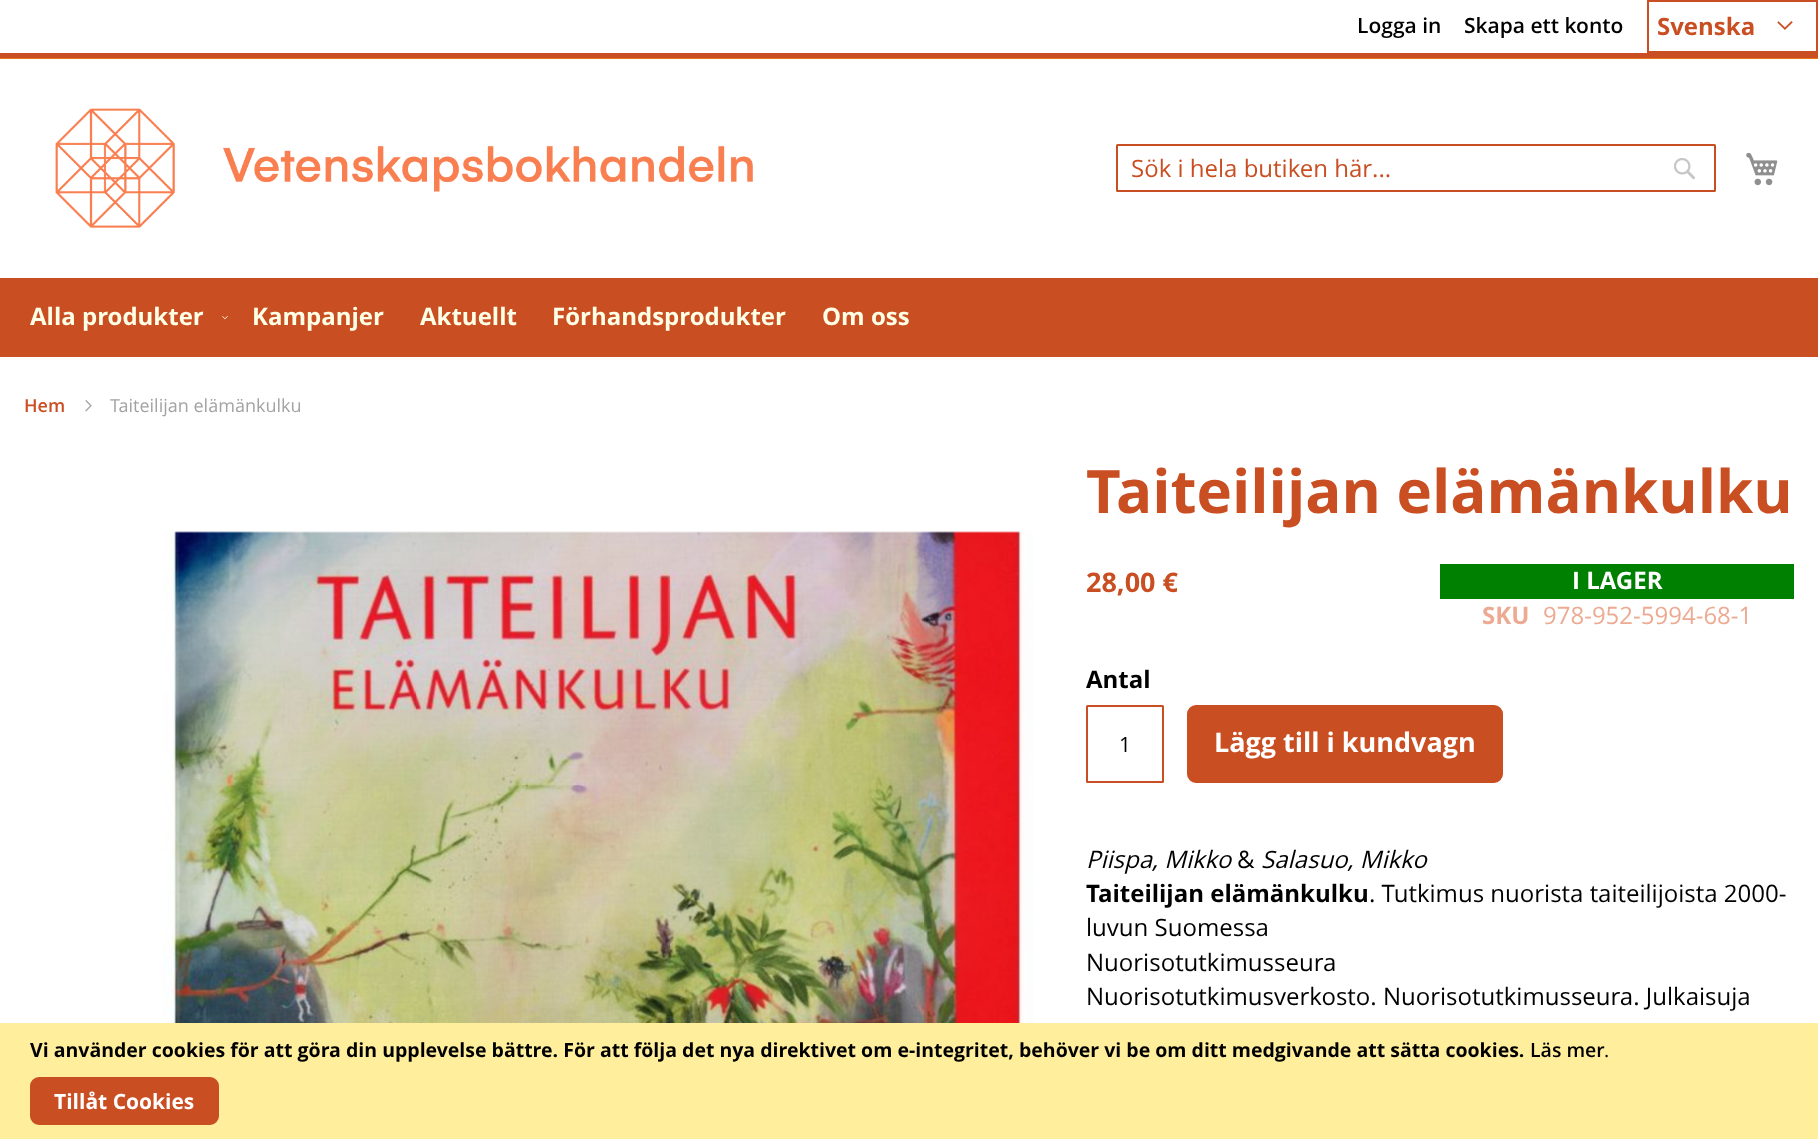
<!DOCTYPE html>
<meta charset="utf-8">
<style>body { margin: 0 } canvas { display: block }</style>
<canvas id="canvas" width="1818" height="1139"></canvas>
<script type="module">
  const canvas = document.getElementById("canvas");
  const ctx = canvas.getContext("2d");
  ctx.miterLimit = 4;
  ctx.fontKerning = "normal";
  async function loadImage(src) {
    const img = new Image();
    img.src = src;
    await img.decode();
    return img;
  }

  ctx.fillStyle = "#ffffff";
  ctx.fillRect(0, 0, 1818, 1139);
  ctx.fillStyle = "#e7751c";
  ctx.fillRect(0, 58, 1818, 1);
  ctx.fillStyle = "#c94e22";
  ctx.fillRect(0, 53, 1818, 5);
  ctx.font = "600 21px Open Sans";
  ctx.fillStyle = "#000000";
  ctx.fillText("Logga in", 1357, 33);
  ctx.fillText("Skapa ett konto", 1464, 33);
  ctx.strokeStyle = "#c94e22";
  ctx.lineWidth = 2;
  ctx.strokeRect(1648, 1, 169, 51);
  ctx.font = "bold 24px Open Sans";
  ctx.fillStyle = "#c94e22";
  ctx.fillText("Svenska", 1657, 35);
  ctx.drawImage(await loadImage("img1.png"), 1777, 21, 16, 9);
  ctx.drawImage(await loadImage("img2.png"), 55, 108, 698, 120);
  ctx.beginPath();
  ctx.roundRect(1117, 145, 598, 46, 0.5);
  ctx.stroke();
  ctx.font = "24px Open Sans";
  ctx.fillText("Sök i hela butiken här...", 1131, 177);
  ctx.drawImage(await loadImage("img3.png"), 1673, 158, 22, 22);
  ctx.drawImage(await loadImage("img4.png"), 1746, 152, 32, 34);
  ctx.fillRect(0, 278, 1818, 79);
  ctx.font = "bold 24px Open Sans";
  ctx.fillStyle = "#ffffe6";
  ctx.fillText("Alla produkter", 30, 325);
  ctx.drawImage(await loadImage("img5.png"), 222, 316, 6, 4);
  ctx.fillText("Kampanjer", 252, 325);
  ctx.fillText("Aktuellt", 420, 325);
  ctx.fillText("Förhandsprodukter", 552, 325);
  ctx.fillText("Om oss", 822, 325);
  ctx.font = "600 18px Open Sans";
  ctx.fillStyle = "#c94e22";
  ctx.fillText("Hem", 24, 412);
  ctx.drawImage(await loadImage("img6.png"), 85, 400, 7, 12);
  ctx.font = "18px Open Sans";
  ctx.fillStyle = "#a3a3a3";
  ctx.fillText("Taiteilijan elämänkulku", 110, 412);
  ctx.drawImage(await loadImage("img7.png"), 162, 531, 871, 492);
  ctx.font = "bold 60px Open Sans";
  ctx.fillStyle = "#c94e22";
  ctx.fillText("Taiteilijan elämänkulku", 1086, 513);
  ctx.font = "bold 27px Open Sans";
  ctx.fillText("28,00 €", 1086, 592);
  ctx.fillStyle = "#008000";
  ctx.fillRect(1440, 564, 354, 35);
  ctx.font = "bold 24px Open Sans";
  ctx.fillStyle = "#ffffff";
  ctx.fillText("I LAGER", 1572, 589);
  ctx.fillStyle = "#edaa92";
  ctx.fillText("SKU", 1482, 624);
  ctx.font = "24px Open Sans";
  ctx.fillText("978-952-5994-68-1", 1543, 624);
  ctx.font = "bold 24px Open Sans";
  ctx.fillStyle = "#000000";
  ctx.fillText("Antal", 1086, 688);
  ctx.beginPath();
  ctx.roundRect(1087, 706, 76, 76, 0.5);
  ctx.stroke();
  ctx.font = "21px Open Sans";
  ctx.fillText("1", 1119, 752);
  ctx.fillStyle = "#c94e22";
  ctx.beginPath();
  ctx.roundRect(1188, 706, 314, 76, 8);
  ctx.fill();
  ctx.stroke();
  ctx.font = "bold 27px Open Sans";
  ctx.fillStyle = "#ffffff";
  ctx.fillText("Lägg till i kundvagn", 1214, 752);
  ctx.font = "italic 24px Open Sans";
  ctx.fillStyle = "#000000";
  ctx.fillText("Piispa, Mikko", 1086, 868);
  ctx.font = "24px Open Sans";
  ctx.fillText("&", 1237, 868);
  ctx.font = "italic 24px Open Sans";
  ctx.fillText("Salasuo, Mikko", 1261, 868);
  ctx.font = "bold 24px Open Sans";
  ctx.fillText("Taiteilijan elämänkulku", 1086, 902);
  ctx.font = "24px Open Sans";
  ctx.fillText(". Tutkimus nuorista taiteilijoista 2000-", 1369, 902);
  ctx.fillText("luvun Suomessa", 1086, 936);
  ctx.fillText("Nuorisotutkimusseura", 1086, 971);
  ctx.fillText("Nuorisotutkimusverkosto. Nuorisotutkimusseura. Julkaisuja", 1086, 1005);
  ctx.fillStyle = "#ffee9c";
  ctx.fillRect(0, 1023, 1818, 116);
  ctx.font = "bold 19.5px Open Sans";
  ctx.fillStyle = "#000000";
  ctx.fillText("Vi använder cookies för att göra din upplevelse bättre. För att följa det nya direktivet om e-integritet, behöver vi be om ditt medgivande att sätta cookies.", 30, 1057);
  ctx.font = "600 19.5px Open Sans";
  ctx.fillText("Läs mer", 1530, 1057);
  ctx.font = "19.5px Open Sans";
  ctx.fillText(".", 1604, 1057);
  ctx.fillStyle = "#c94e22";
  ctx.beginPath();
  ctx.roundRect(31, 1078, 187, 46, 8);
  ctx.fill();
  ctx.stroke();
  ctx.font = "bold 21px Open Sans";
  ctx.fillStyle = "#ffffff";
  ctx.fillText("Tillåt Cookies", 54, 1109);
</script>
